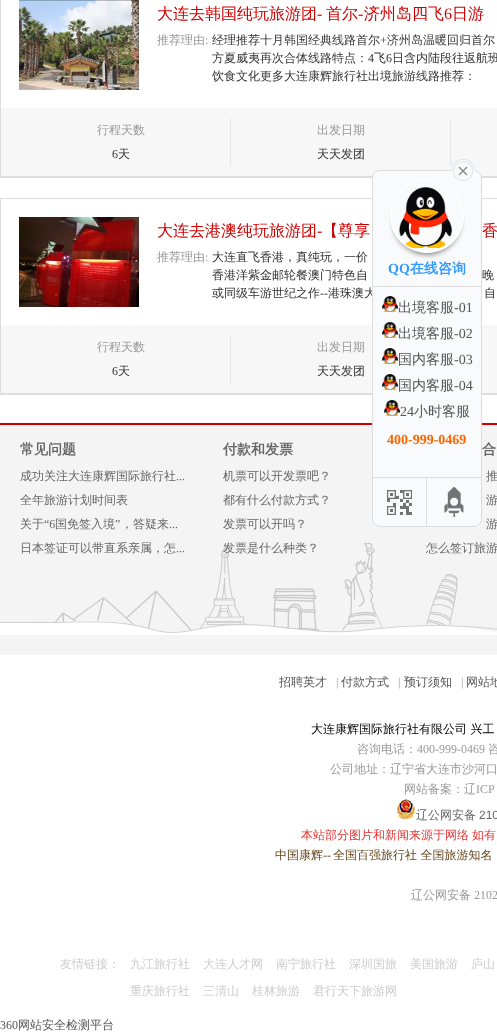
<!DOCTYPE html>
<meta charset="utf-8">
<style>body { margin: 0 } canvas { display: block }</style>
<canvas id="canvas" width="497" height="1034"></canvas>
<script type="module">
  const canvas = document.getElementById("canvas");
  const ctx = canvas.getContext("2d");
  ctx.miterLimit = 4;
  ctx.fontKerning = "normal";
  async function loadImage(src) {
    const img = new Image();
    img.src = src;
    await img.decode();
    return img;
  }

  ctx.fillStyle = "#ffffff";
  ctx.fillRect(0, 0, 497, 1034);
  ctx.fillStyle = "#dddddd";
  ctx.fillRect(0, 176, 497, 2);
  ctx.fillRect(0, 0, 1, 178);
  ctx.drawImage(await loadImage("img1.png"), 19, 0, 120, 90);
  ctx.font = "500 16px WenQuanYi Zen Hei";
  ctx.fillStyle = "#cf0000";
  ctx.fillText("大连去韩国纯玩旅游团", 157, 19);
  ctx.font = "16px Liberation Serif";
  ctx.fillText("-", 317, 19);
  ctx.font = "500 16px WenQuanYi Zen Hei";
  ctx.fillText("首尔", 326, 19);
  ctx.font = "16px Liberation Serif";
  ctx.fillText("-", 358, 19);
  ctx.font = "500 16px WenQuanYi Zen Hei";
  ctx.fillText("济州岛四飞", 364, 19);
  ctx.font = "16px Liberation Serif";
  ctx.fillText("6", 444, 19);
  ctx.font = "500 16px WenQuanYi Zen Hei";
  ctx.fillText("日游", 452, 19);
  ctx.font = "500 12px WenQuanYi Zen Hei";
  ctx.fillStyle = "#999999";
  ctx.fillText("推荐理由", 157, 44);
  ctx.font = "12px Liberation Serif";
  ctx.fillText(":", 205, 44);
  ctx.font = "500 12px WenQuanYi Zen Hei";
  ctx.fillStyle = "#333333";
  ctx.fillText("经理推荐十月韩国经典线路首尔", 212, 44);
  ctx.font = "12px Liberation Serif";
  ctx.fillText("+", 380, 44);
  ctx.font = "500 12px WenQuanYi Zen Hei";
  ctx.fillText("济州岛温暖回归首尔", 387, 44);
  ctx.fillText("方夏威夷再次合体线路特点：", 212, 62);
  ctx.font = "12px Liberation Serif";
  ctx.fillText("4", 368, 62);
  ctx.font = "500 12px WenQuanYi Zen Hei";
  ctx.fillText("飞", 374, 62);
  ctx.font = "12px Liberation Serif";
  ctx.fillText("6", 386, 62);
  ctx.font = "500 12px WenQuanYi Zen Hei";
  ctx.fillText("日含内陆段往返航班", 392, 62);
  ctx.fillText("饮食文化更多大连康辉旅行社出境旅游线路推荐：", 212, 80);
  ctx.fillStyle = "#f7f7f7";
  ctx.fillRect(1, 108, 496, 68);
  ctx.fillStyle = "#e6e6e6";
  ctx.fillRect(230, 118, 1, 48);
  ctx.fillStyle = "#999999";
  ctx.fillText("行程天数", 97, 134);
  ctx.font = "12px Liberation Serif";
  ctx.fillStyle = "#333333";
  ctx.fillText("6", 112, 158);
  ctx.font = "500 12px WenQuanYi Zen Hei";
  ctx.fillText("天", 118, 158);
  ctx.fillStyle = "#e6e6e6";
  ctx.fillRect(450, 118, 1, 48);
  ctx.fillStyle = "#999999";
  ctx.fillText("出发日期", 317, 134);
  ctx.fillStyle = "#333333";
  ctx.fillText("天天发团", 317, 158);
  ctx.fillStyle = "#dddddd";
  ctx.fillRect(0, 198, 497, 1);
  ctx.fillRect(0, 393, 497, 2);
  ctx.fillRect(0, 198, 1, 197);
  ctx.drawImage(await loadImage("img2.png"), 19, 217, 120, 90);
  ctx.font = "500 16px WenQuanYi Zen Hei";
  ctx.fillStyle = "#cf0000";
  ctx.fillText("大连去港澳纯玩旅游团", 157, 236);
  ctx.font = "16px Liberation Serif";
  ctx.fillText("-", 317, 236);
  ctx.font = "500 16px WenQuanYi Zen Hei";
  ctx.fillText("【尊享", 322, 236);
  ctx.fillText("香", 482, 236);
  ctx.font = "500 12px WenQuanYi Zen Hei";
  ctx.fillStyle = "#999999";
  ctx.fillText("推荐理由", 157, 261);
  ctx.font = "12px Liberation Serif";
  ctx.fillText(":", 205, 261);
  ctx.font = "500 12px WenQuanYi Zen Hei";
  ctx.fillStyle = "#333333";
  ctx.fillText("大连直飞香港，真纯玩，一价", 212, 261);
  ctx.fillText("香港洋紫金邮轮餐澳门特色自", 212, 279);
  ctx.fillText("晚", 482, 279);
  ctx.fillText("或同级车游世纪之作", 212, 297);
  ctx.font = "12px Liberation Serif";
  ctx.fillText("--", 320, 297);
  ctx.font = "500 12px WenQuanYi Zen Hei";
  ctx.fillText("港珠澳大", 328, 297);
  ctx.fillText("自", 484, 297);
  ctx.fillStyle = "#f7f7f7";
  ctx.fillRect(1, 325, 496, 68);
  ctx.fillStyle = "#e6e6e6";
  ctx.fillRect(230, 335, 1, 48);
  ctx.fillStyle = "#999999";
  ctx.fillText("行程天数", 97, 351);
  ctx.font = "12px Liberation Serif";
  ctx.fillStyle = "#333333";
  ctx.fillText("6", 112, 375);
  ctx.font = "500 12px WenQuanYi Zen Hei";
  ctx.fillText("天", 118, 375);
  ctx.fillStyle = "#999999";
  ctx.fillText("出发日期", 317, 351);
  ctx.fillStyle = "#333333";
  ctx.fillText("天天发团", 317, 375);
  ctx.fillStyle = "#f4f4f4";
  ctx.fillRect(0, 425, 497, 230);
  ctx.fillStyle = "#cf0000";
  ctx.fillRect(0, 423, 497, 2);
  ctx.fillStyle = "#f9fafb";
  ctx.beginPath();
  ctx.roundRect(372.5, 170.5, 109, 356, 7.5);
  ctx.fill();
  ctx.strokeStyle = "#dddddd";
  ctx.stroke();
  ctx.drawImage(await loadImage("img4.png"), 389, 179, 76, 80);
  ctx.drawImage(await loadImage("img3.png"), 451, 159, 24, 22);
  ctx.drawImage(await loadImage("img5.png"), 399, 187, 53, 61);
  ctx.font = "bold 14px Liberation Serif";
  ctx.fillStyle = "#3399ff";
  ctx.fillText("QQ", 388, 273);
  ctx.font = "bold 14px WenQuanYi Zen Hei";
  ctx.fillText("在线咨询", 410, 273);
  ctx.fillStyle = "#dddddd";
  ctx.fillRect(373, 286, 108, 1);
  ctx.fillRect(373, 477, 108, 1);
  ctx.drawImage(await loadImage("img6.png"), 382, 296, 16, 16);
  ctx.font = "500 14px WenQuanYi Zen Hei";
  ctx.fillStyle = "#555555";
  ctx.fillText("出境客服", 398, 312);
  ctx.font = "14px Liberation Serif";
  ctx.fillText("-01", 454, 312);
  ctx.drawImage(await loadImage("img6.png"), 382, 322, 16, 16);
  ctx.font = "500 14px WenQuanYi Zen Hei";
  ctx.fillText("出境客服", 398, 338);
  ctx.font = "14px Liberation Serif";
  ctx.fillText("-02", 454, 338);
  ctx.drawImage(await loadImage("img6.png"), 382, 348, 16, 16);
  ctx.font = "500 14px WenQuanYi Zen Hei";
  ctx.fillText("国内客服", 398, 364);
  ctx.font = "14px Liberation Serif";
  ctx.fillText("-03", 454, 364);
  ctx.drawImage(await loadImage("img6.png"), 382, 374, 16, 16);
  ctx.font = "500 14px WenQuanYi Zen Hei";
  ctx.fillText("国内客服", 398, 390);
  ctx.font = "14px Liberation Serif";
  ctx.fillText("-04", 454, 390);
  ctx.drawImage(await loadImage("img6.png"), 384, 400, 16, 16);
  ctx.fillText("24", 400, 416);
  ctx.font = "500 14px WenQuanYi Zen Hei";
  ctx.fillText("小时客服", 414, 416);
  ctx.font = "bold 14px Liberation Serif";
  ctx.fillStyle = "#ff6600";
  ctx.fillText("400-999-0469", 387, 444);
  ctx.drawImage(await loadImage("img7.png"), 387, 490, 25, 25);
  ctx.fillStyle = "#dddddd";
  ctx.fillRect(426, 478, 1, 48);
  ctx.drawImage(await loadImage("img8.png"), 444, 487, 20, 30);
  ctx.drawImage(await loadImage("img9.png"), 0, 542, 497, 93);
  ctx.font = "bold 14px WenQuanYi Zen Hei";
  ctx.fillStyle = "#666666";
  ctx.fillText("常见问题", 20, 454);
  ctx.font = "500 12px WenQuanYi Zen Hei";
  ctx.fillText("成功关注大连康辉国际旅行社", 20, 480);
  ctx.font = "12px Liberation Serif";
  ctx.fillText("...", 176, 480);
  ctx.font = "500 12px WenQuanYi Zen Hei";
  ctx.fillText("全年旅游计划时间表", 20, 504);
  ctx.fillText("关于", 20, 528);
  ctx.font = "12px Liberation Serif";
  ctx.fillText("“6", 44, 528);
  ctx.font = "500 12px WenQuanYi Zen Hei";
  ctx.fillText("国免签入境", 55, 528);
  ctx.font = "12px Liberation Serif";
  ctx.fillText("”", 115, 528);
  ctx.font = "500 12px WenQuanYi Zen Hei";
  ctx.fillText("，答疑来", 121, 528);
  ctx.font = "12px Liberation Serif";
  ctx.fillText("...", 169, 528);
  ctx.font = "500 12px WenQuanYi Zen Hei";
  ctx.fillText("日本签证可以带直系亲属，怎", 20, 552);
  ctx.font = "12px Liberation Serif";
  ctx.fillText("...", 176, 552);
  ctx.font = "bold 14px WenQuanYi Zen Hei";
  ctx.fillText("付款和发票", 223, 454);
  ctx.font = "500 12px WenQuanYi Zen Hei";
  ctx.fillText("机票可以开发票吧？", 223, 480);
  ctx.fillText("都有什么付款方式？", 223, 504);
  ctx.fillText("发票可以开吗？", 223, 528);
  ctx.fillText("发票是什么种类？", 223, 552);
  ctx.font = "bold 14px WenQuanYi Zen Hei";
  ctx.fillText("合", 482, 454);
  ctx.font = "500 12px WenQuanYi Zen Hei";
  ctx.fillText("推", 486, 480);
  ctx.fillText("游", 486, 504);
  ctx.fillText("游", 486, 528);
  ctx.fillText("怎么签订旅游", 426, 552);
  ctx.fillStyle = "#555555";
  ctx.fillText("招聘英才", 279, 686);
  ctx.font = "12px Liberation Serif";
  ctx.fillStyle = "#999999";
  ctx.fillText("|", 336, 686);
  ctx.font = "500 12px WenQuanYi Zen Hei";
  ctx.fillStyle = "#555555";
  ctx.fillText("付款方式", 341, 686);
  ctx.font = "12px Liberation Serif";
  ctx.fillStyle = "#999999";
  ctx.fillText("|", 398, 686);
  ctx.font = "500 12px WenQuanYi Zen Hei";
  ctx.fillStyle = "#555555";
  ctx.fillText("预订须知", 404, 686);
  ctx.font = "12px Liberation Serif";
  ctx.fillStyle = "#999999";
  ctx.fillText("|", 461, 686);
  ctx.font = "500 12px WenQuanYi Zen Hei";
  ctx.fillStyle = "#555555";
  ctx.fillText("网站地", 466, 686);
  ctx.fillStyle = "#000000";
  ctx.fillText("大连康辉国际旅行社", 311, 733);
  ctx.fillText("有限公司 兴工", 419, 733);
  ctx.fillStyle = "#999999";
  ctx.fillText("咨询电话：", 357, 753);
  ctx.font = "12px Liberation Serif";
  ctx.fillText("400-999-0469", 417, 753);
  ctx.font = "500 12px WenQuanYi Zen Hei";
  ctx.fillText("咨", 488, 753);
  ctx.fillText("公司地址：辽宁省大连市沙河口", 330, 773);
  ctx.fillText("网站备案：辽", 404, 793);
  ctx.font = "12px Liberation Serif";
  ctx.fillText("ICP", 476, 793);
  ctx.drawImage(await loadImage("img10.png"), 397, 799, 18, 20);
  ctx.font = "500 12px WenQuanYi Zen Hei";
  ctx.fillStyle = "#666666";
  ctx.fillText("辽公网安备", 416, 819);
  ctx.font = "12px Liberation Sans";
  ctx.fillText("210", 479, 819);
  ctx.font = "500 12px WenQuanYi Zen Hei";
  ctx.fillStyle = "#e53333";
  ctx.fillText("本站部分图片和新闻来源于网络", 301, 839);
  ctx.fillText("如有", 472, 839);
  ctx.fillStyle = "#64451d";
  ctx.fillText("中国康辉", 275, 859);
  ctx.font = "12px Liberation Serif";
  ctx.fillText("--", 323, 859);
  ctx.font = "500 12px WenQuanYi Zen Hei";
  ctx.fillText("全国百强旅行社 全国旅游知名", 333, 859);
  ctx.fillStyle = "#999999";
  ctx.fillText("辽公网安备", 411, 899);
  ctx.font = "12px Liberation Serif";
  ctx.fillText("2102", 474, 899);
  ctx.font = "500 12px WenQuanYi Zen Hei";
  ctx.fillStyle = "#cccccc";
  ctx.fillText("友情链接：", 60, 968);
  ctx.fillText("九江旅行社", 130, 968);
  ctx.fillText("大连人才网", 203, 968);
  ctx.fillText("南宁旅行社", 276, 968);
  ctx.fillText("深圳国旅", 349, 968);
  ctx.fillText("美国旅游", 410, 968);
  ctx.fillText("庐山", 471, 968);
  ctx.fillText("重庆旅行社", 130, 995);
  ctx.fillText("三清山", 203, 995);
  ctx.fillText("桂林旅游", 252, 995);
  ctx.fillText("君行天下旅游网", 313, 995);
  ctx.font = "12px Liberation Serif";
  ctx.fillStyle = "#555555";
  ctx.fillText("360", 0, 1029);
  ctx.font = "500 12px WenQuanYi Zen Hei";
  ctx.fillText("网站安全检测平台", 18, 1029);
</script>
